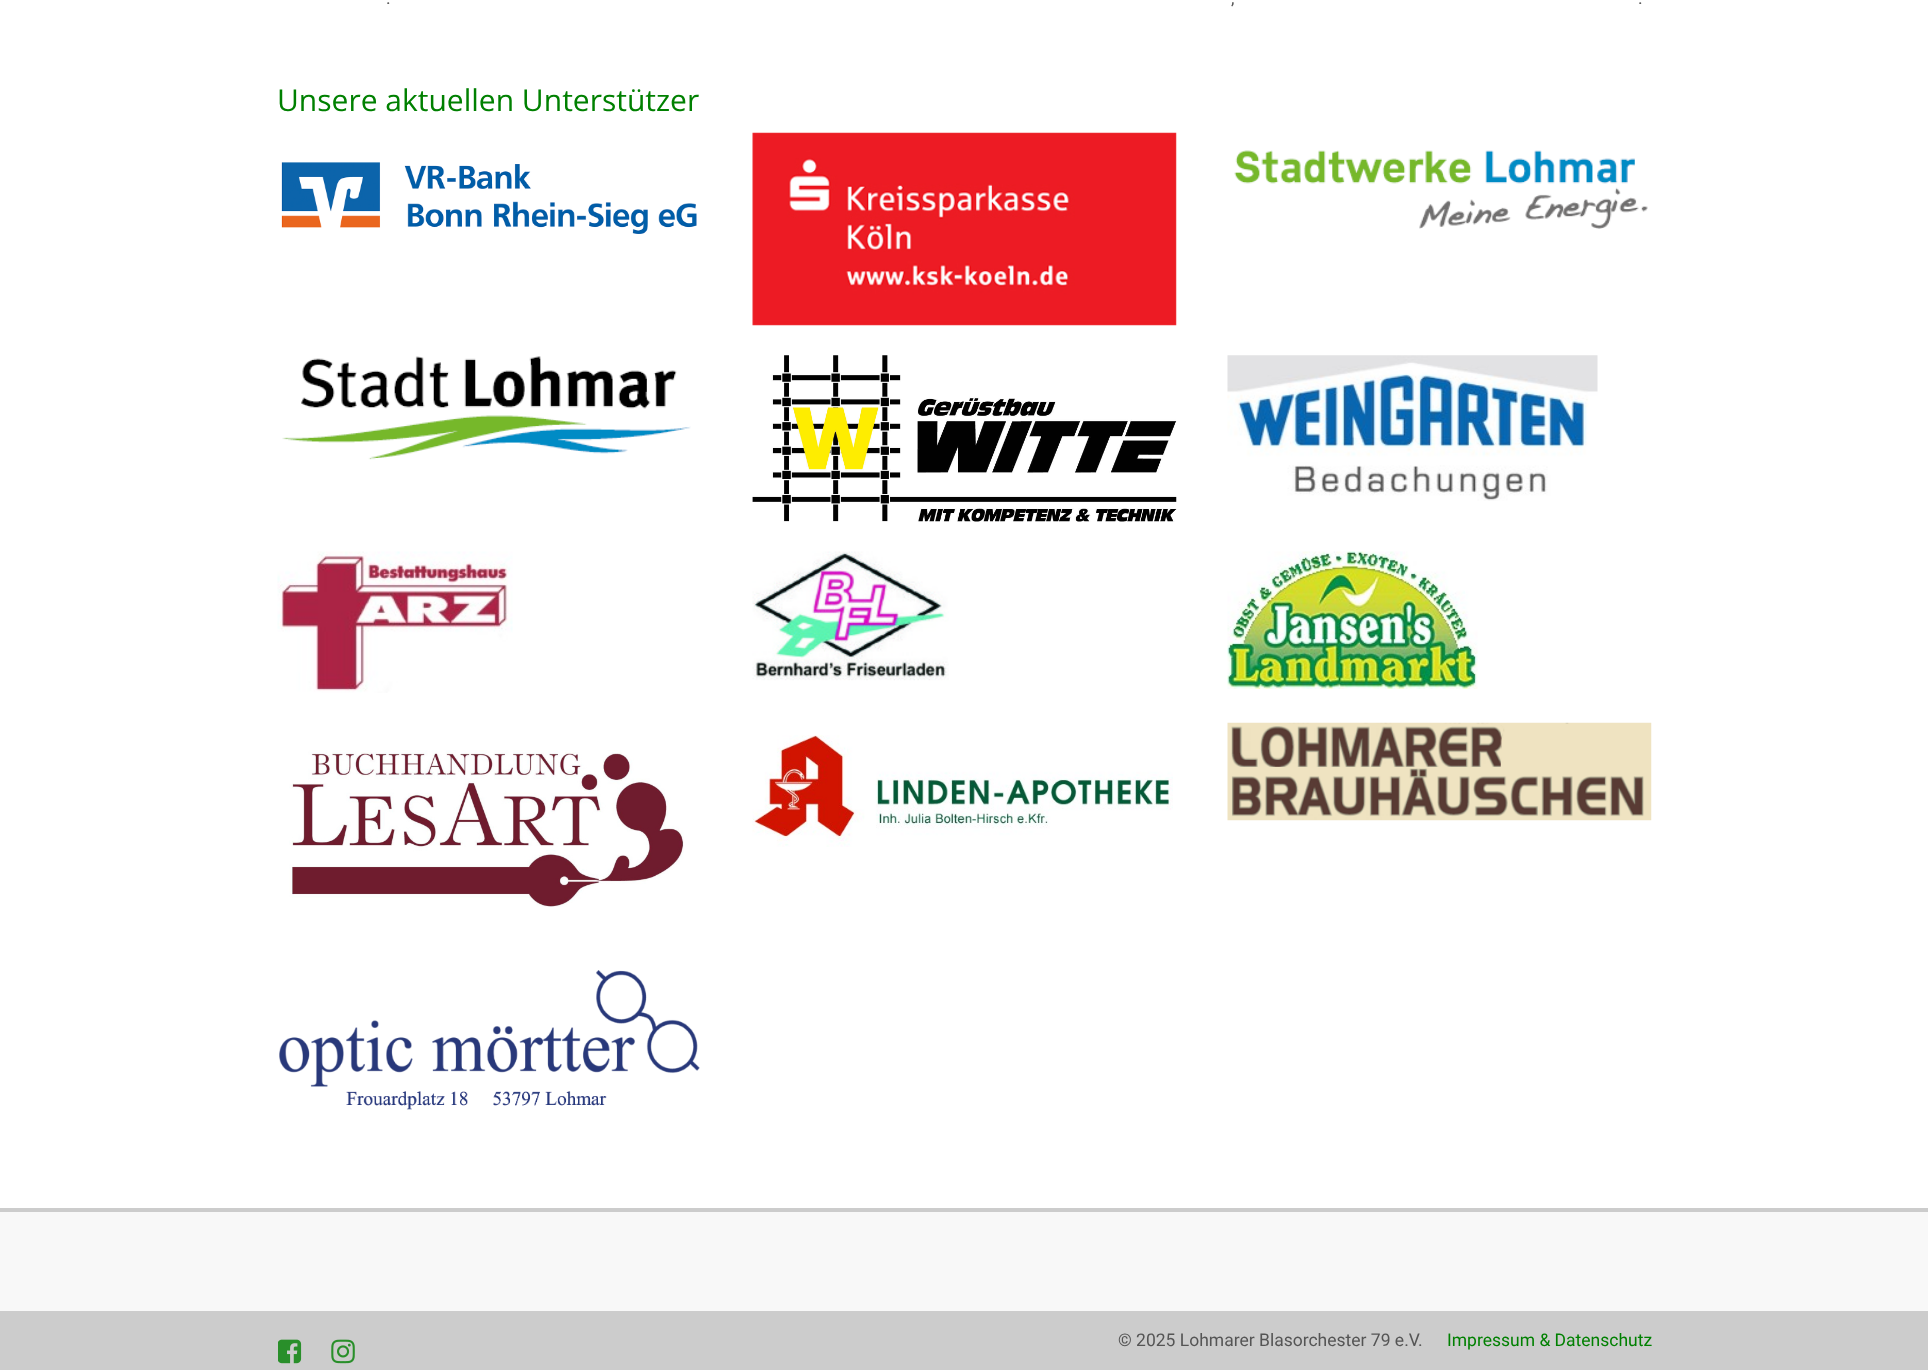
<!DOCTYPE html>
<meta charset="utf-8">
<style>body { margin: 0 } canvas { display: block }</style>
<canvas id="canvas" width="1928" height="1370"></canvas>
<script type="module">
  const canvas = document.getElementById("canvas");
  const ctx = canvas.getContext("2d");
  ctx.miterLimit = 4;
  ctx.fontKerning = "normal";
  async function loadImage(src) {
    const img = new Image();
    img.src = src;
    await img.decode();
    return img;
  }

  ctx.fillStyle = "#ffffff";
  ctx.fillRect(0, 0, 1928, 1370);
  ctx.font = "17.5px Roboto";
  ctx.fillStyle = "#555555";
  ctx.fillText(".", 386, 4);
  ctx.fillText(",", 1231, 4);
  ctx.fillText(".", 1638, 4);
  ctx.font = "30px Open Sans";
  ctx.fillStyle = "#008001";
  ctx.fillText("Unsere aktuellen Unterstützer", 277, 111);
  ctx.drawImage(await loadImage("img1.png"), 281, 162, 416, 72);
  ctx.drawImage(await loadImage("img2.png"), 752, 132, 425, 194);
  ctx.drawImage(await loadImage("img3.png"), 1234, 150, 414, 79);
  ctx.drawImage(await loadImage("img4.png"), 282, 356, 409, 104);
  ctx.drawImage(await loadImage("img5.png"), 752, 355, 425, 167);
  ctx.drawImage(await loadImage("img6.png"), 1227, 355, 371, 146);
  ctx.drawImage(await loadImage("img7.png"), 277, 551, 236, 142);
  ctx.drawImage(await loadImage("img8.png"), 752, 551, 197, 130);
  ctx.drawImage(await loadImage("img9.png"), 1227, 551, 251, 138);
  ctx.drawImage(await loadImage("img10.png"), 289, 750, 395, 157);
  ctx.drawImage(await loadImage("img11.png"), 752, 735, 421, 112);
  ctx.drawImage(await loadImage("img12.png"), 1227, 722, 425, 99);
  ctx.drawImage(await loadImage("img13.png"), 279, 970, 421, 140);
  ctx.fillStyle = "#f8f8f8";
  ctx.fillRect(0, 1212, 1928, 99);
  ctx.fillStyle = "#cccccc";
  ctx.fillRect(0, 1208, 1928, 4);
  ctx.fillRect(0, 1311, 1928, 59);
  ctx.drawImage(await loadImage("img14.png"), 278, 1339, 24, 25);
  ctx.drawImage(await loadImage("img15.png"), 331, 1339, 24, 25);
  ctx.font = "17.5px Roboto";
  ctx.fillStyle = "#555555";
  ctx.fillText("© 2025 Lohmarer Blasorchester 79 e.V.", 1118, 1346);
  ctx.fillStyle = "#008001";
  ctx.fillText("Impressum & Datenschutz", 1447, 1346);
</script>
